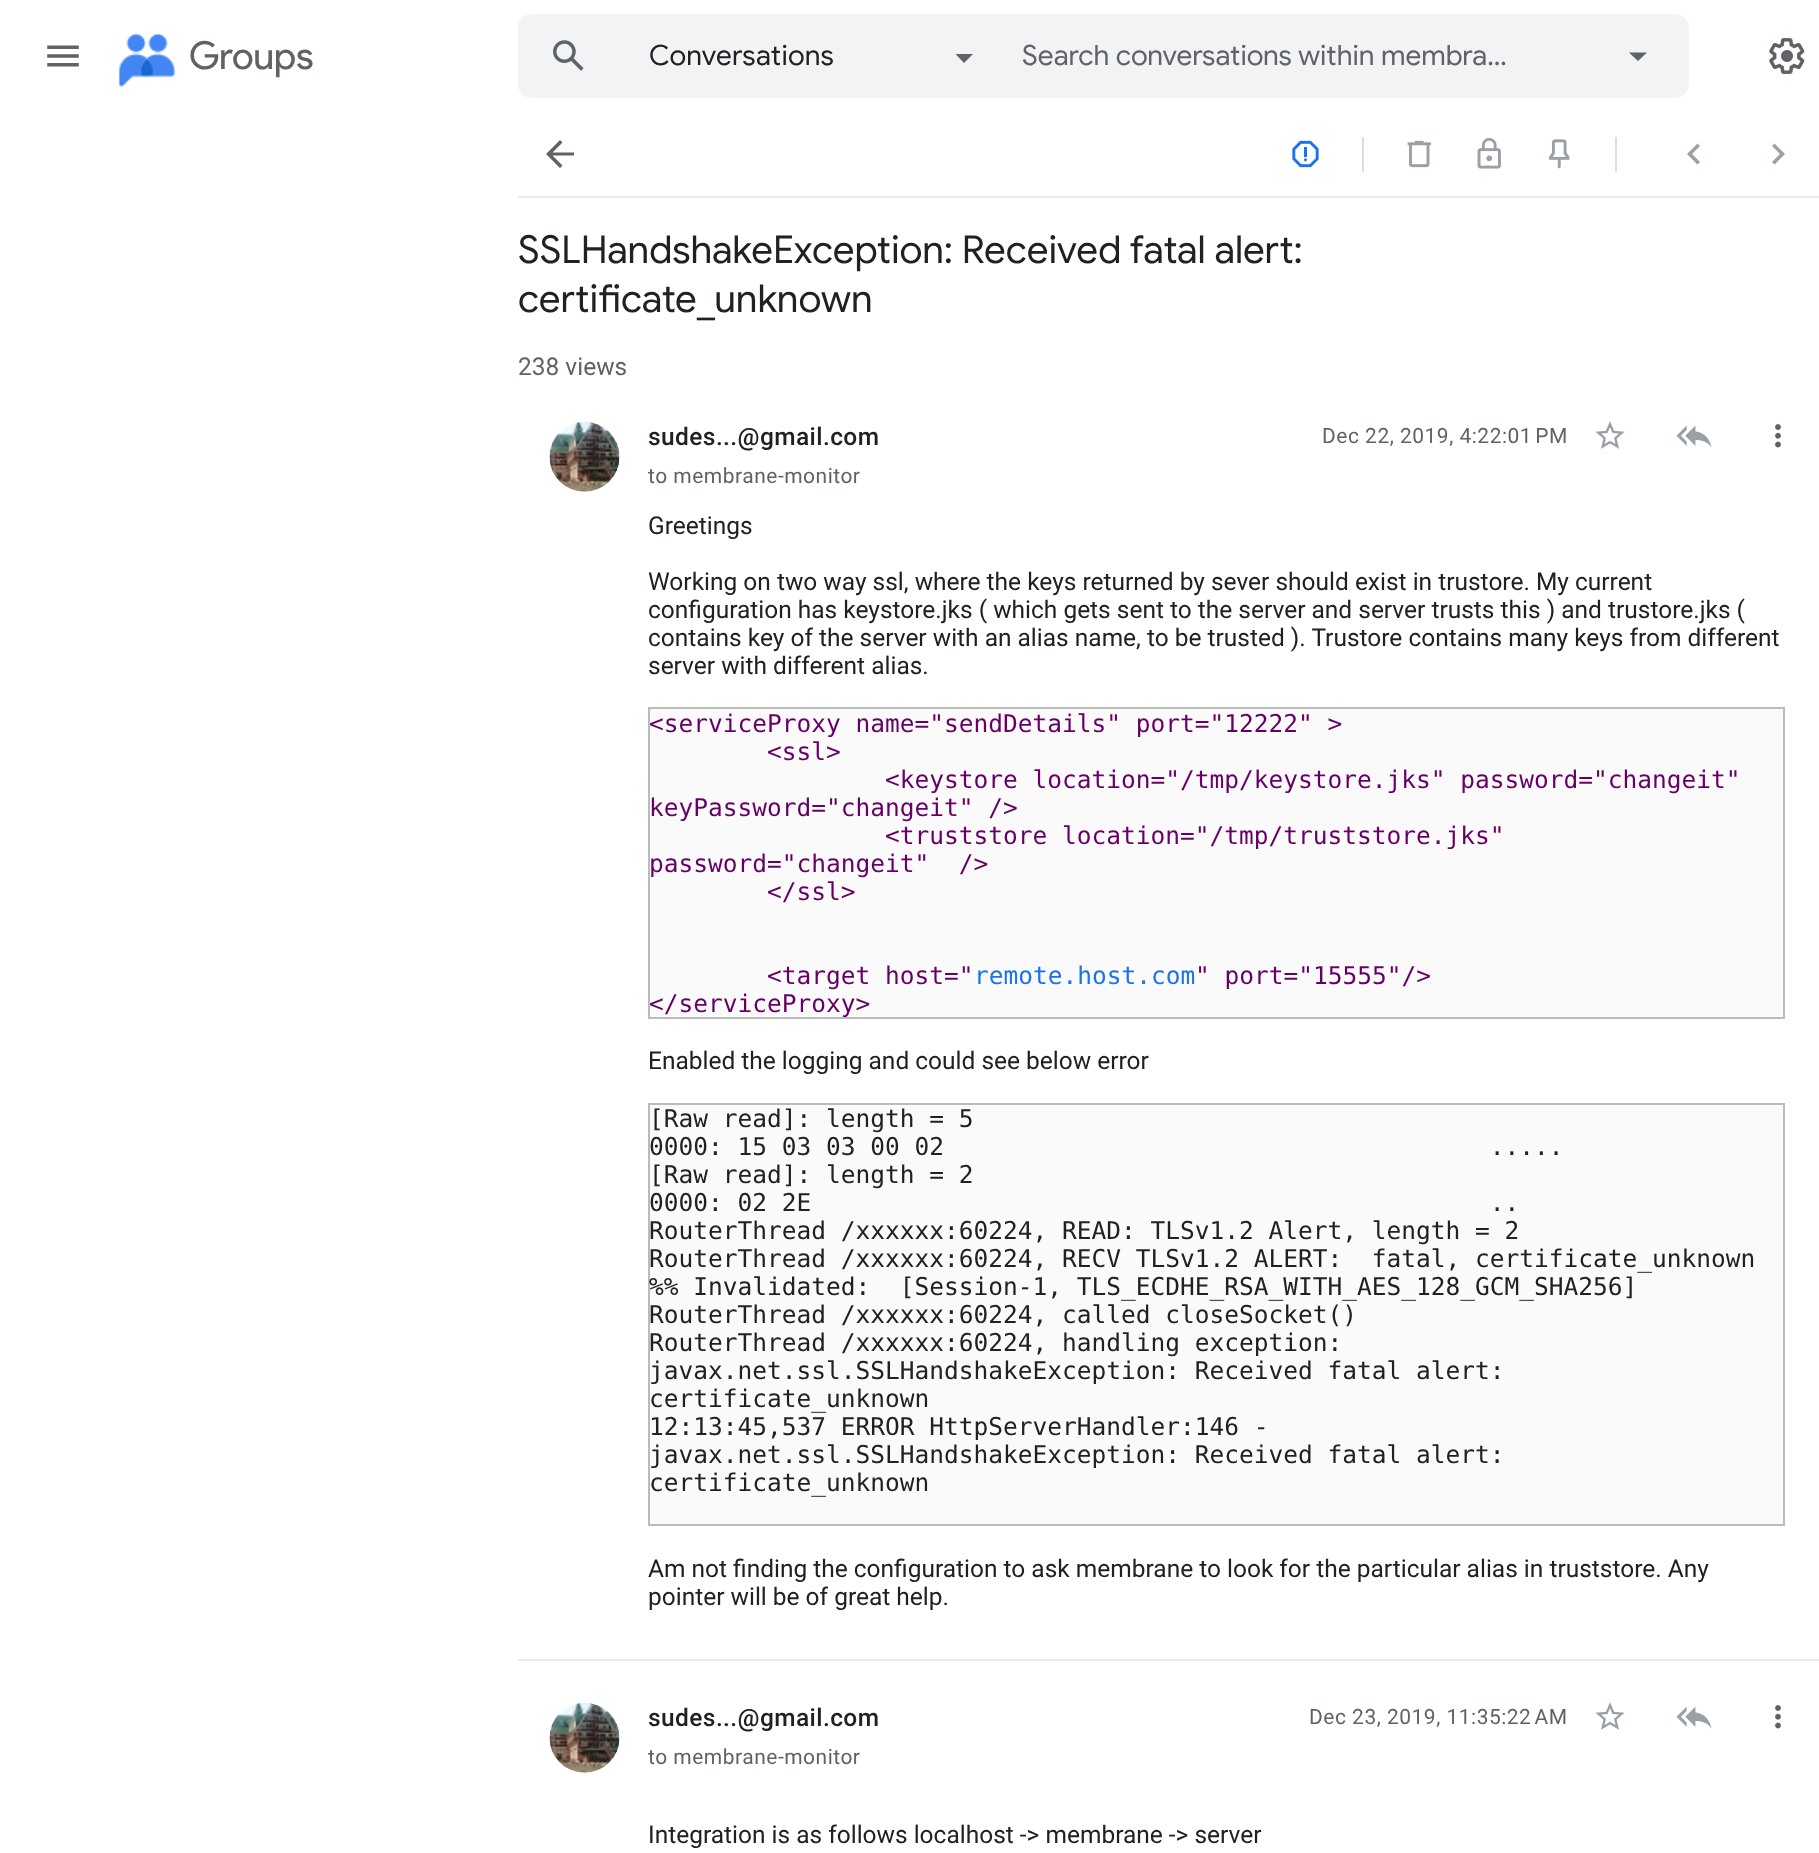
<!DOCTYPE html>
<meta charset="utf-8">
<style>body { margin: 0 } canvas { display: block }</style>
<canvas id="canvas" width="1819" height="1853"></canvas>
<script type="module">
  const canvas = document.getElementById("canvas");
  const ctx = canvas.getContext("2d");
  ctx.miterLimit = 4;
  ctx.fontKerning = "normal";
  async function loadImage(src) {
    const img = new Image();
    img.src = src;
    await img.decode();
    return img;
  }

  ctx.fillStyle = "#ffffff";
  ctx.fillRect(0, 0, 1819, 1853);
  ctx.drawImage(await loadImage("img1.png"), 47, 45, 32, 22);
  ctx.drawImage(await loadImage("img2.png"), 119, 33, 56, 55);
  ctx.font = "38.5px Product Sans";
  ctx.fillStyle = "#5f6368";
  ctx.fillText("Groups", 189, 69);
  ctx.fillStyle = "#f1f3f4";
  ctx.beginPath();
  ctx.roundRect(518, 14, 1171, 84, 14);
  ctx.fill();
  ctx.drawImage(await loadImage("img3.png"), 553, 40, 31, 31);
  ctx.letterSpacing = "0.3px";
  ctx.font = "28px Google Sans";
  ctx.fillStyle = "#202124";
  ctx.fillText("Conversations", 649, 65);
  ctx.fillStyle = "#5f6368";
  ctx.beginPath();
  ctx.moveTo(955.5, 54);
  ctx.lineTo(973, 54);
  ctx.lineTo(964, 63);
  ctx.closePath();
  ctx.fill();
  ctx.letterSpacing = "0px";
  ctx.fillText("Search conversations within membra…", 1022, 65);
  ctx.beginPath();
  ctx.moveTo(1629, 52.5);
  ctx.lineTo(1638, 61);
  ctx.lineTo(1647, 52.5);
  ctx.closePath();
  ctx.fill();
  ctx.drawImage(await loadImage("img4.png"), 1769, 38, 36, 36);
  ctx.fillStyle = "#e8eaed";
  ctx.fillRect(518, 196, 1301, 2);
  ctx.fillStyle = "#5f6368";
  ctx.beginPath();
  ctx.moveTo(574, 152.5);
  ctx.lineTo(574, 155.5);
  ctx.lineTo(552.5, 155.5);
  ctx.lineTo(562.5, 165.5);
  ctx.lineTo(560, 168);
  ctx.lineTo(546, 154);
  ctx.lineTo(560, 140);
  ctx.lineTo(562.5, 142.5);
  ctx.lineTo(552.5, 152.5);
  ctx.closePath();
  ctx.fill();
  ctx.drawImage(await loadImage("img5.png"), 1292, 140, 27, 28);
  ctx.fillStyle = "#dddddd";
  ctx.fillRect(1362, 137, 2, 35);
  ctx.drawImage(await loadImage("img6.png"), 1407, 140, 24, 28);
  ctx.drawImage(await loadImage("img7.png"), 1477, 138, 24, 31);
  ctx.drawImage(await loadImage("img8.png"), 1549, 139, 21, 30);
  ctx.fillRect(1615, 137, 2, 35);
  ctx.fillStyle = "#9aa0a6";
  ctx.beginPath();
  ctx.moveTo(1700, 146);
  ctx.lineTo(1692, 154);
  ctx.lineTo(1700, 162);
  ctx.lineTo(1697.5, 164.5);
  ctx.lineTo(1687, 154);
  ctx.lineTo(1697.5, 143.5);
  ctx.closePath();
  ctx.fill();
  ctx.beginPath();
  ctx.moveTo(1774.5, 143.5);
  ctx.lineTo(1785, 154);
  ctx.lineTo(1774.5, 164.5);
  ctx.lineTo(1772, 162);
  ctx.lineTo(1780, 154);
  ctx.lineTo(1772, 146);
  ctx.closePath();
  ctx.fill();
  ctx.font = "38.5px Google Sans";
  ctx.fillStyle = "#202124";
  ctx.fillText("SSLHandshakeException: Received fatal alert:", 518, 263);
  ctx.fillText("certificate_unknown", 518, 312);
  ctx.font = "24.5px Roboto";
  ctx.fillStyle = "#5f6368";
  ctx.fillText("238 views", 518, 375);
  ctx.fillStyle = "#e8eaed";
  ctx.fillRect(518, 1659, 1301, 2);
  ctx.drawImage(await loadImage("img9.png"), 549, 422, 71, 70);
  ctx.letterSpacing = "0.4px";
  ctx.font = "500 24.5px Roboto";
  ctx.fillStyle = "#202124";
  ctx.fillText("sudes...@gmail.com", 648, 445);
  ctx.letterSpacing = "0.5px";
  ctx.font = "21px Roboto";
  ctx.fillStyle = "#5f6368";
  ctx.fillText("Dec 22, 2019, 4:22:01 PM", 1322, 443);
  ctx.drawImage(await loadImage("img10.png"), 1595, 421, 30, 28);
  ctx.drawImage(await loadImage("img11.png"), 1676, 425, 36, 23);
  ctx.drawImage(await loadImage("img12.png"), 1775, 424, 6, 24);
  ctx.fillText("to membrane-monitor", 648, 483);
  ctx.letterSpacing = "0px";
  ctx.font = "24.5px Roboto";
  ctx.fillStyle = "#202124";
  ctx.fillText("Greetings", 648, 534);
  ctx.fillText("Working on two way ssl, where the keys returned by sever should exist in trustore. My current", 648, 590);
  ctx.fillText("configuration has keystore.jks ( which gets sent to the server and server trusts this ) and trustore.jks (", 648, 618);
  ctx.fillText("contains key of the server with an alias name, to be trusted ). Trustore contains many keys from different", 648, 646);
  ctx.fillText("server with different alias.", 648, 674);
  ctx.fillStyle = "#fafafa";
  ctx.beginPath();
  ctx.rect(649, 708, 1135, 310);
  ctx.fill();
  ctx.strokeStyle = "#bbbbbb";
  ctx.lineWidth = 2;
  ctx.stroke();
  ctx.font = "24.5px DejaVu Sans Mono";
  ctx.fillStyle = "#660066";
  ctx.fillText("<serviceProxy name=\"sendDetails\" port=\"12222\" >", 649, 732);
  ctx.fillText("<ssl>", 767, 760);
  ctx.fillText("<keystore location=\"/tmp/keystore.jks\" password=\"changeit\"", 885, 788);
  ctx.fillText("keyPassword=\"changeit\" />", 649, 816);
  ctx.fillText("<truststore location=\"/tmp/truststore.jks\"", 885, 844);
  ctx.fillText("password=\"changeit\"  />", 649, 872);
  ctx.fillText("<\/ssl>", 767, 900);
  ctx.fillText("<target host=\"", 767, 984);
  ctx.fillStyle = "#1a73e8";
  ctx.fillText("remote.host.com", 974, 984);
  ctx.fillStyle = "#660066";
  ctx.fillText("\" port=\"15555\"/>", 1195, 984);
  ctx.fillText("<\/serviceProxy>", 649, 1012);
  ctx.font = "24.5px Roboto";
  ctx.fillStyle = "#202124";
  ctx.fillText("Enabled the logging and could see below error", 648, 1069);
  ctx.fillStyle = "#fafafa";
  ctx.beginPath();
  ctx.rect(649, 1104, 1135, 421);
  ctx.fill();
  ctx.stroke();
  ctx.font = "24.5px DejaVu Sans Mono";
  ctx.fillStyle = "#202124";
  ctx.fillText("[Raw read]: length = 5", 649, 1127);
  ctx.fillText("0000: 15 03 03 00 02                                     .....", 649, 1155);
  ctx.fillText("[Raw read]: length = 2", 649, 1183);
  ctx.fillText("0000: 02 2E                                              ..", 649, 1211);
  ctx.fillText("RouterThread /xxxxxx:60224, READ: TLSv1.2 Alert, length = 2", 649, 1239);
  ctx.fillText("RouterThread /xxxxxx:60224, RECV TLSv1.2 ALERT:  fatal, certificate_unknown", 649, 1267);
  ctx.fillText("%% Invalidated:  [Session-1, TLS_ECDHE_RSA_WITH_AES_128_GCM_SHA256]", 649, 1295);
  ctx.fillText("RouterThread /xxxxxx:60224, called closeSocket()", 649, 1323);
  ctx.fillText("RouterThread /xxxxxx:60224, handling exception:", 649, 1351);
  ctx.fillText("javax.net.ssl.SSLHandshakeException: Received fatal alert:", 649, 1379);
  ctx.fillText("certificate_unknown", 649, 1407);
  ctx.fillText("12:13:45,537 ERROR HttpServerHandler:146 -", 649, 1435);
  ctx.fillText("javax.net.ssl.SSLHandshakeException: Received fatal alert:", 649, 1463);
  ctx.fillText("certificate_unknown", 649, 1491);
  ctx.font = "24.5px Roboto";
  ctx.fillText("Am not finding the configuration to ask membrane to look for the particular alias in truststore. Any", 648, 1577);
  ctx.fillText("pointer will be of great help.", 648, 1605);
  ctx.drawImage(await loadImage("img9.png"), 549, 1703, 71, 70);
  ctx.letterSpacing = "0.4px";
  ctx.font = "500 24.5px Roboto";
  ctx.fillText("sudes...@gmail.com", 648, 1726);
  ctx.letterSpacing = "0.5px";
  ctx.font = "21px Roboto";
  ctx.fillStyle = "#5f6368";
  ctx.fillText("Dec 23, 2019, 11:35:22 AM", 1309, 1724);
  ctx.drawImage(await loadImage("img10.png"), 1595, 1702, 30, 28);
  ctx.drawImage(await loadImage("img11.png"), 1676, 1706, 36, 23);
  ctx.drawImage(await loadImage("img12.png"), 1775, 1705, 6, 24);
  ctx.fillText("to membrane-monitor", 648, 1764);
  ctx.letterSpacing = "0px";
  ctx.font = "24.5px Roboto";
  ctx.fillStyle = "#202124";
  ctx.fillText("Integration is as follows localhost -> membrane -> server", 648, 1843);
</script>
